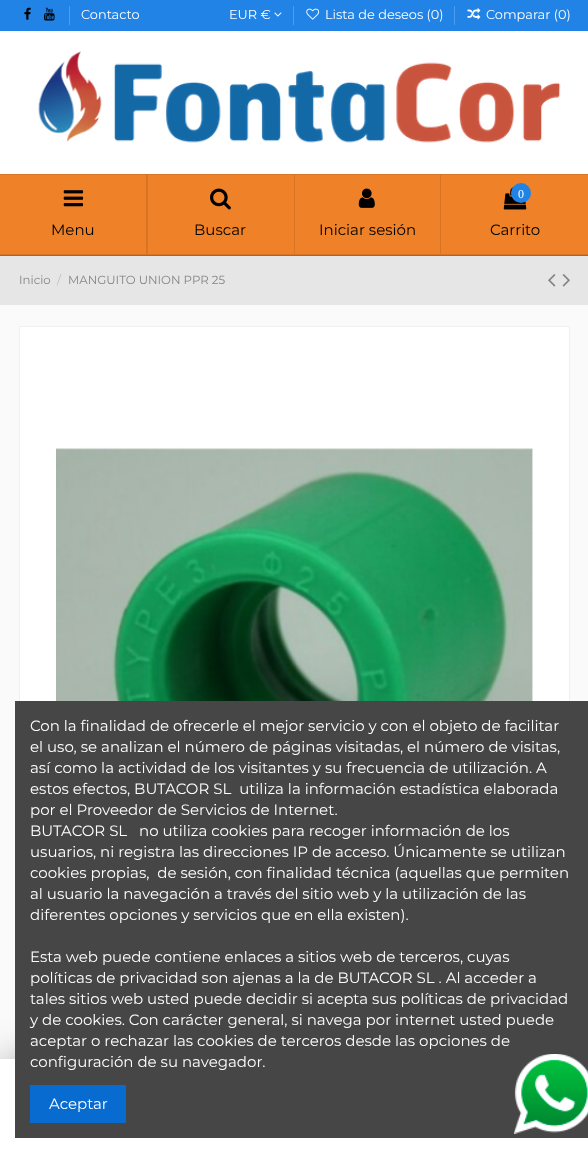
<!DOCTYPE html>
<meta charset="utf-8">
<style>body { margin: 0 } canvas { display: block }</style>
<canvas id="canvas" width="588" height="1152"></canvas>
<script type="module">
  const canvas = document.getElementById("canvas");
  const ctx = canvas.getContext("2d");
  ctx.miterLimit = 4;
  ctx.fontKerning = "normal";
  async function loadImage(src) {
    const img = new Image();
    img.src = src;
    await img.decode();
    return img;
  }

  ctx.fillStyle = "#fafafa";
  ctx.fillRect(0, 0, 588, 1152);
  ctx.fillStyle = "#ffffff";
  ctx.fillRect(0, 31, 588, 143);
  ctx.fillStyle = "#2183e6";
  ctx.fillRect(0, 0, 588, 31);
  ctx.drawImage(await loadImage("img1.png"), 24, 7, 7, 13);
  ctx.drawImage(await loadImage("img2.png"), 43, 7, 12, 14);
  ctx.fillStyle = "#4d9ceb";
  ctx.fillRect(69, 6, 1, 19);
  ctx.font = "12.9px Montserrat";
  ctx.fillStyle = "#ffffff";
  ctx.fillText("Contacto", 81, 19);
  ctx.fillText("EUR €", 229, 19);
  ctx.drawImage(await loadImage("img3.png"), 274, 12, 8, 5);
  ctx.fillStyle = "#4d9ceb";
  ctx.fillRect(293, 6, 1, 19);
  ctx.drawImage(await loadImage("img4.png"), 306, 8, 14, 12);
  ctx.fillStyle = "#ffffff";
  ctx.fillText("Lista de deseos (0)", 325, 19);
  ctx.fillStyle = "#4d9ceb";
  ctx.fillRect(454, 6, 1, 19);
  ctx.drawImage(await loadImage("img5.png"), 467, 8, 14, 12);
  ctx.fillStyle = "#ffffff";
  ctx.fillText("Comparar (0)", 486, 19);
  ctx.fillStyle = "#c8533e";
  ctx.fillRect(0, 255, 588, 1);
  ctx.drawImage(await loadImage("img6.png"), 38, 51, 523, 92);
  ctx.fillStyle = "#ef8228";
  ctx.fillRect(0, 174, 588, 81);
  ctx.fillStyle = "#d77626";
  ctx.beginPath();
  ctx.moveTo(0, 174);
  ctx.lineTo(148, 174);
  ctx.lineTo(146, 175);
  ctx.lineTo(0, 175);
  ctx.closePath();
  ctx.fill();
  ctx.fillStyle = "rgba(21, 21, 21, 0.11)";
  ctx.beginPath();
  ctx.moveTo(148, 174);
  ctx.lineTo(148, 255);
  ctx.lineTo(146, 254);
  ctx.lineTo(146, 175);
  ctx.closePath();
  ctx.fill();
  ctx.beginPath();
  ctx.moveTo(148, 255);
  ctx.lineTo(0, 255);
  ctx.lineTo(0, 254);
  ctx.lineTo(146, 254);
  ctx.closePath();
  ctx.fill();
  ctx.drawImage(await loadImage("img7.png"), 63, 190, 21, 17);
  ctx.font = "15px Montserrat";
  ctx.fillStyle = "#000000";
  ctx.fillText("Menu", 51, 235);
  ctx.fillStyle = "#d77626";
  ctx.beginPath();
  ctx.moveTo(148, 174);
  ctx.lineTo(295, 174);
  ctx.lineTo(294, 175);
  ctx.lineTo(148, 175);
  ctx.closePath();
  ctx.fill();
  ctx.fillStyle = "rgba(21, 21, 21, 0.11)";
  ctx.beginPath();
  ctx.moveTo(295, 174);
  ctx.lineTo(295, 255);
  ctx.lineTo(294, 254);
  ctx.lineTo(294, 175);
  ctx.closePath();
  ctx.fill();
  ctx.beginPath();
  ctx.moveTo(295, 255);
  ctx.lineTo(148, 255);
  ctx.lineTo(148, 254);
  ctx.lineTo(294, 254);
  ctx.closePath();
  ctx.fill();
  ctx.drawImage(await loadImage("img8.png"), 210, 188, 21, 22);
  ctx.fillStyle = "#000000";
  ctx.fillText("Buscar", 194, 235);
  ctx.fillStyle = "#d77626";
  ctx.beginPath();
  ctx.moveTo(295, 174);
  ctx.lineTo(441, 174);
  ctx.lineTo(440, 175);
  ctx.lineTo(295, 175);
  ctx.closePath();
  ctx.fill();
  ctx.fillStyle = "rgba(21, 21, 21, 0.11)";
  ctx.beginPath();
  ctx.moveTo(441, 174);
  ctx.lineTo(441, 255);
  ctx.lineTo(440, 254);
  ctx.lineTo(440, 175);
  ctx.closePath();
  ctx.fill();
  ctx.beginPath();
  ctx.moveTo(441, 255);
  ctx.lineTo(295, 255);
  ctx.lineTo(295, 254);
  ctx.lineTo(440, 254);
  ctx.closePath();
  ctx.fill();
  ctx.drawImage(await loadImage("img9.png"), 358, 188, 17, 20);
  ctx.fillStyle = "#000000";
  ctx.fillText("Iniciar sesión", 319, 235);
  ctx.fillStyle = "#d77626";
  ctx.fillRect(441, 174, 147, 1);
  ctx.fillRect(441, 254, 147, 1);
  ctx.drawImage(await loadImage("img10.png"), 503, 187, 24, 23);
  ctx.fillStyle = "#2183e6";
  ctx.beginPath();
  ctx.arc(521, 193, 10, 0, Math.PI * 2);
  ctx.fill();
  ctx.font = "12px Liberation Serif";
  ctx.fillStyle = "#ffffff";
  ctx.fillText("0", 518, 198);
  ctx.font = "15px Montserrat";
  ctx.fillStyle = "#000000";
  ctx.fillText("Carrito", 490, 235);
  ctx.fillStyle = "#e6e6e6";
  ctx.fillRect(0, 256, 588, 49);
  ctx.font = "11.75px Montserrat";
  ctx.fillStyle = "#858585";
  ctx.fillText("Inicio", 19, 284);
  ctx.fillStyle = "#bfbfbf";
  ctx.fillText("/", 57, 284);
  ctx.fillStyle = "#858585";
  ctx.fillText("MANGUITO UNION PPR 25", 68, 284);
  ctx.drawImage(await loadImage("img11.png"), 548, 274, 8, 13);
  ctx.drawImage(await loadImage("img12.png"), 562, 274, 8, 13);
  ctx.fillStyle = "#ffffff";
  ctx.fillRect(20, 327, 549, 374);
  ctx.strokeStyle = "#f0f0f0";
  ctx.strokeRect(19.5, 326.5, 550, 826);
  ctx.drawImage(await loadImage("img13.png"), 56, 447, 477, 254);
  ctx.fillStyle = "rgba(0, 0, 0, 0.3)";
  ctx.filter = "blur(19px)";
  ctx.beginPath();
  ctx.rect(0, 1059, 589, 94);
  ctx.fill();
  ctx.filter = "none";
  ctx.fillStyle = "#ffffff";
  ctx.fillRect(0, 1059, 588, 93);
  ctx.fillStyle = "#464646";
  ctx.fillRect(15, 701, 573, 437);
  ctx.drawImage(await loadImage("img14.png"), 514, 1054, 74, 80);
  ctx.font = "15px Montserrat";
  ctx.fillStyle = "#ffffff";
  ctx.fillText("Con la finalidad de ofrecerle el mejor servicio y con el objeto de facilitar", 30, 731);
  ctx.fillText("el uso, se analizan el número de páginas visitadas, el número de visitas,", 30, 752);
  ctx.fillText("así como la actividad de los visitantes y su frecuencia de utilización. A", 30, 773);
  ctx.fillText("estos efectos, BUTACOR SL  utiliza la información estadística elaborada", 30, 794);
  ctx.fillText("por el Proveedor de Servicios de Internet.", 30, 815);
  ctx.fillText("BUTACOR SL   no utiliza cookies para recoger información de los", 30, 836);
  ctx.fillText("usuarios, ni registra las direcciones IP de acceso. Únicamente se utilizan", 30, 857);
  ctx.fillText("cookies propias,  de sesión, con finalidad técnica (aquellas que permiten", 30, 878);
  ctx.fillText("al usuario la navegación a través del sitio web y la utilización de las", 30, 899);
  ctx.fillText("diferentes opciones y servicios que en ella existen).", 30, 920);
  ctx.fillText("Esta web puede contiene enlaces a sitios web de terceros, cuyas", 30, 962);
  ctx.fillText("políticas de privacidad son ajenas a la de BUTACOR SL . Al acceder a", 30, 983);
  ctx.fillText("tales sitios web usted puede decidir si acepta sus políticas de privacidad", 30, 1004);
  ctx.fillText("y de cookies. Con carácter general, si navega por internet usted puede", 30, 1025);
  ctx.fillText("aceptar o rechazar las cookies de terceros desde las opciones de", 30, 1046);
  ctx.fillText("configuración de su navegador.", 30, 1067);
  ctx.fillStyle = "#086bd0";
  ctx.fillRect(30, 1085, 96, 38);
  ctx.fillStyle = "#ffffff";
  ctx.fillText("Aceptar", 49, 1109);
</script>
